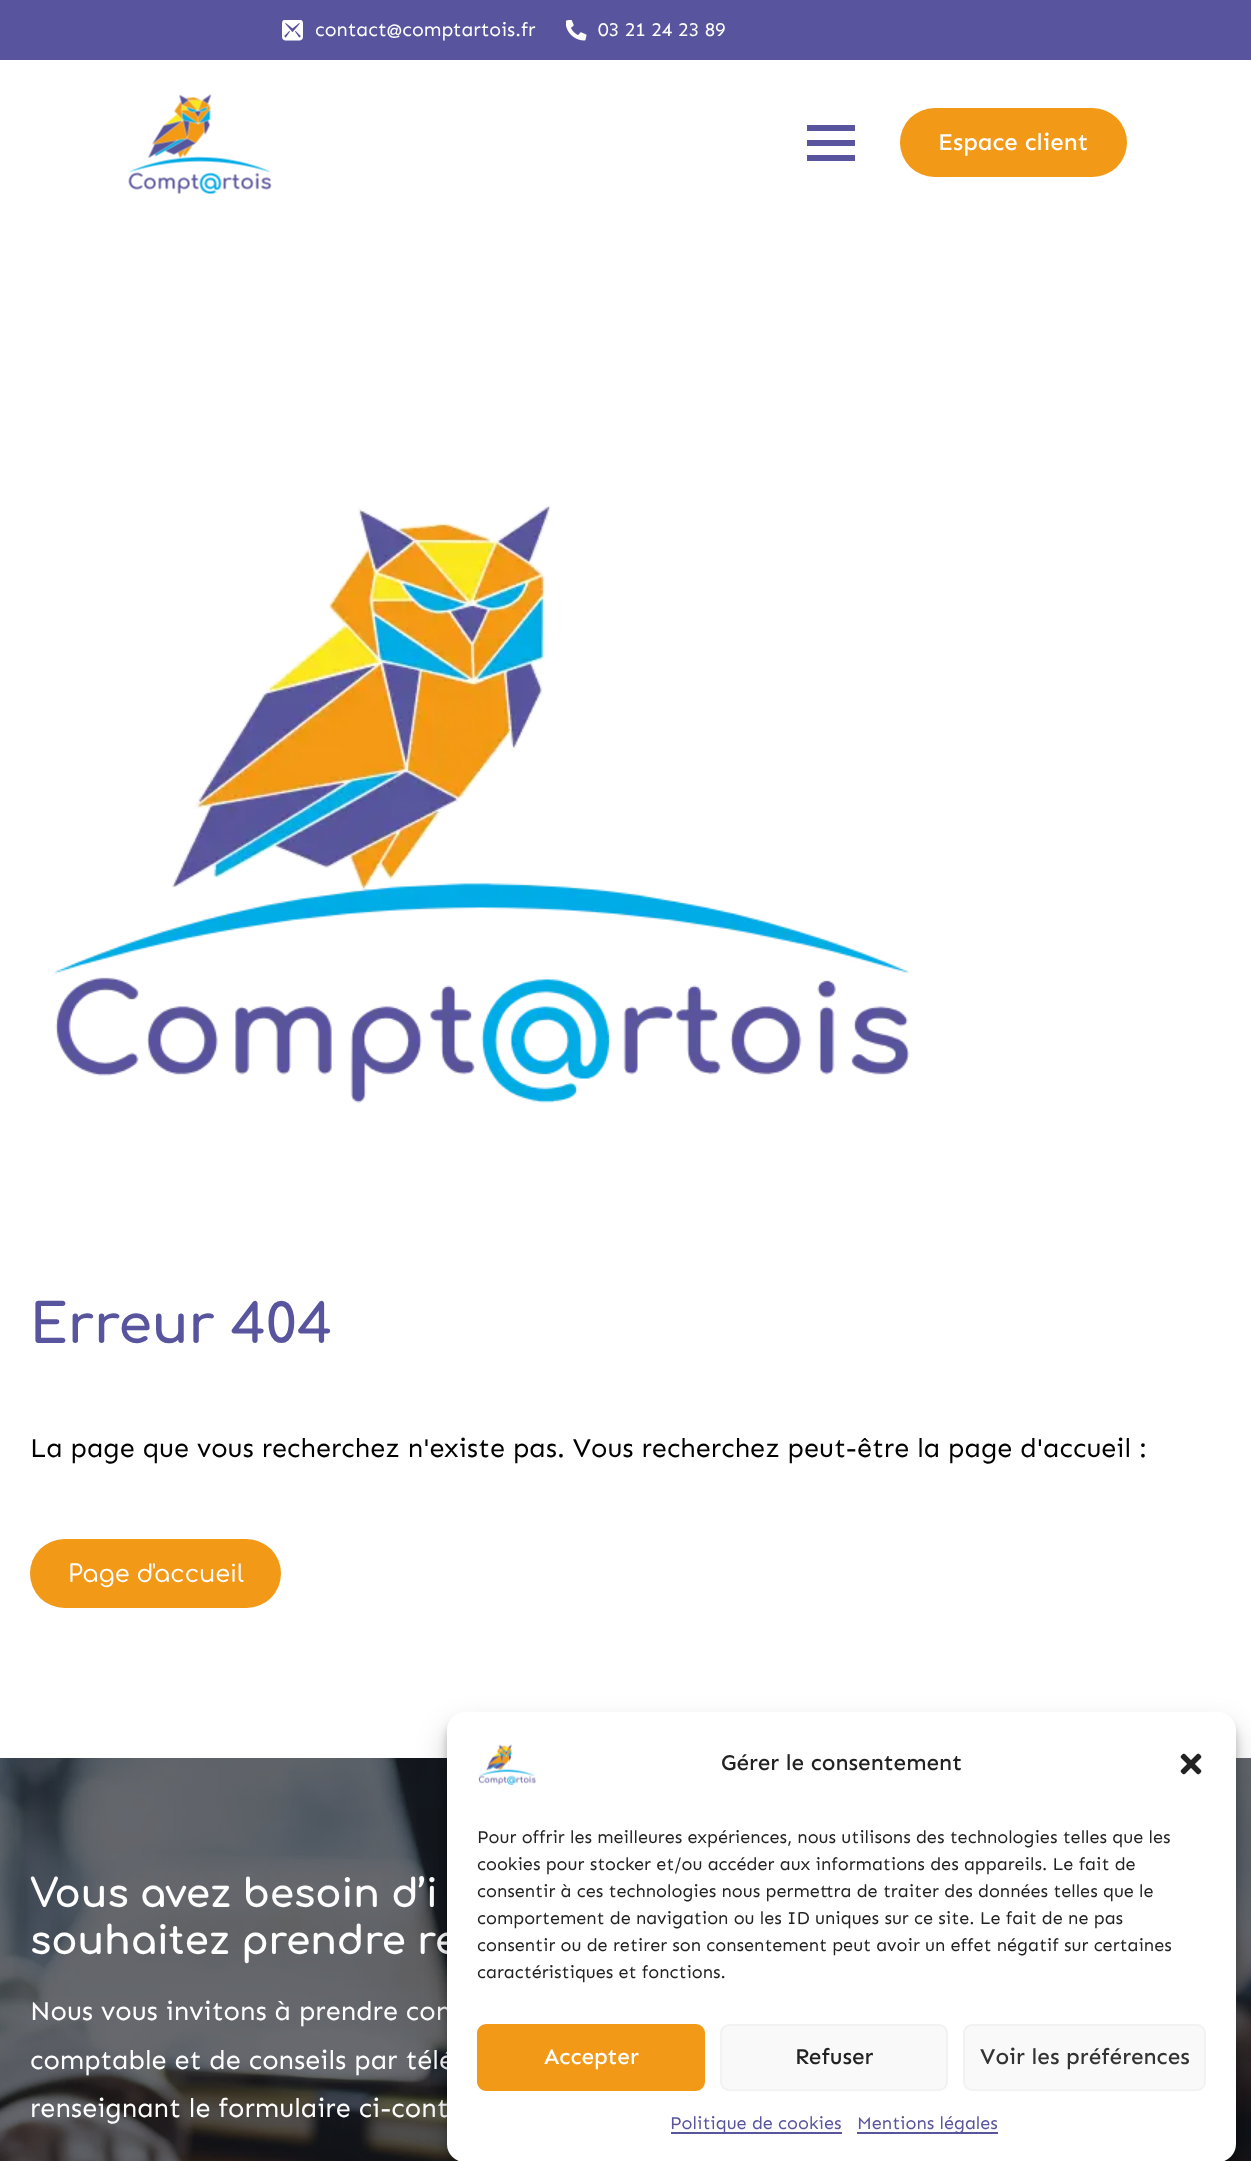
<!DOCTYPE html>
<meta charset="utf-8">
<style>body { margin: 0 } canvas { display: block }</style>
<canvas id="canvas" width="1251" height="2161"></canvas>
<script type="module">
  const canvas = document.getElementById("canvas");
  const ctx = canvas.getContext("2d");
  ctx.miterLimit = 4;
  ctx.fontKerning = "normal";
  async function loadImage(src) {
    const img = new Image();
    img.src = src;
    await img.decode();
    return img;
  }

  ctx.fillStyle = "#ffffff";
  ctx.fillRect(0, 0, 1251, 2161);
  ctx.fillStyle = "#58549d";
  ctx.fillRect(0, 0, 1251, 60);
  ctx.drawImage(await loadImage("img1.png"), 282, 20, 21, 21);
  ctx.font = "19.5px Sen";
  ctx.fillStyle = "#ffffff";
  ctx.fillText("contact@comptartois.fr", 315, 36);
  ctx.drawImage(await loadImage("img2.png"), 566, 20, 21, 21);
  ctx.fillText("03 21 24 23 89", 598, 36);
  ctx.drawImage(await loadImage("img3.png"), 128, 94, 144, 101);
  ctx.fillStyle = "#58549d";
  ctx.fillRect(807, 140, 48, 6);
  ctx.fillRect(807, 125, 48, 6);
  ctx.fillRect(807, 155, 48, 6);
  ctx.fillStyle = "#f29917";
  ctx.beginPath();
  ctx.roundRect(900, 108, 227, 69, 34.5);
  ctx.fill();
  ctx.font = "500 24px Sen";
  ctx.fillStyle = "#ffffff";
  ctx.fillText("Espace client", 938, 150);
  ctx.drawImage(await loadImage("img4.png"), 54, 504, 856, 599);
  ctx.font = "bold 54px Comfortaa";
  ctx.fillStyle = "#58549d";
  ctx.fillText("Erreur 404", 30, 1343);
  ctx.font = "27px Sen";
  ctx.fillStyle = "#000000";
  ctx.fillText("La page que vous recherchez n'existe pas. Vous recherchez peut-être la page d'accueil :", 30, 1457);
  ctx.fillStyle = "#f29917";
  ctx.beginPath();
  ctx.roundRect(30, 1539, 251, 69, 34.5);
  ctx.fill();
  ctx.font = "500 24px Comfortaa";
  ctx.fillStyle = "#ffffff";
  ctx.fillText("Page d'accueil", 68, 1582);
  ctx.drawImage(await loadImage("img5.png"), 0, 1758, 1251, 403);
  ctx.font = "bold 39px Comfortaa";
  ctx.fillText("Vous avez besoin d’i", 30, 1907);
  ctx.fillText("souhaitez prendre re", 30, 1954);
  ctx.font = "27px Sen";
  ctx.fillText("Nous vous invitons à prendre con", 30, 2020);
  ctx.fillText("comptable et de conseils par télé", 30, 2069);
  ctx.fillText("renseignant le formulaire ci-cont", 30, 2117);
  ctx.fillStyle = "rgba(0, 0, 0, 0.23)";
  ctx.filter = "blur(4.5px)";
  ctx.beginPath();
  ctx.roundRect(447, 1721, 789, 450, 18);
  ctx.fill();
  ctx.filter = "none";
  ctx.fillStyle = "rgba(0, 0, 0, 0.19)";
  ctx.filter = "blur(15px)";
  ctx.beginPath();
  ctx.roundRect(447, 1727, 789, 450, 18);
  ctx.fill();
  ctx.filter = "none";
  ctx.fillStyle = "#ffffff";
  ctx.beginPath();
  ctx.roundRect(447, 1712, 789, 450, 18);
  ctx.fill();
  ctx.drawImage(await loadImage("img6.png"), 478, 1744, 58, 41);
  ctx.font = "500 22.5px Sen";
  ctx.fillStyle = "#222222";
  ctx.fillText("Gérer le consentement", 721, 1770);
  ctx.drawImage(await loadImage("img7.png"), 1180, 1753, 22, 22);
  ctx.font = "18px Sen";
  ctx.fillText("Pour offrir les meilleures expériences, nous utilisons des technologies telles que les", 477, 1843);
  ctx.fillText("cookies pour stocker et/ou accéder aux informations des appareils. Le fait de", 477, 1870);
  ctx.fillText("consentir à ces technologies nous permettra de traiter des données telles que le", 477, 1897);
  ctx.fillText("comportement de navigation ou les ID uniques sur ce site. Le fait de ne pas", 477, 1924);
  ctx.fillText("consentir ou de retirer son consentement peut avoir un effet négatif sur certaines", 477, 1951);
  ctx.fillText("caractéristiques et fonctions.", 477, 1978);
  ctx.fillStyle = "#f29917";
  ctx.beginPath();
  ctx.roundRect(478, 2025, 226, 65, 8);
  ctx.fill();
  ctx.strokeStyle = "#f29917";
  ctx.lineWidth = 2;
  ctx.stroke();
  ctx.font = "500 22.5px Sen";
  ctx.fillStyle = "#ffffff";
  ctx.fillText("Accepter", 544, 2064);
  ctx.fillStyle = "#f9f9f9";
  ctx.beginPath();
  ctx.roundRect(721, 2025, 226, 65, 8);
  ctx.fill();
  ctx.strokeStyle = "#f2f2f2";
  ctx.stroke();
  ctx.fillStyle = "#222222";
  ctx.fillText("Refuser", 795, 2064);
  ctx.fillStyle = "#f9f9f9";
  ctx.beginPath();
  ctx.roundRect(964, 2025, 241, 65, 8);
  ctx.fill();
  ctx.stroke();
  ctx.fillStyle = "#333333";
  ctx.fillText("Voir les préférences", 980, 2064);
  ctx.fillStyle = "#58549d";
  ctx.fillRect(671, 2132, 171, 2);
  ctx.font = "18px Sen";
  ctx.fillText("Politique de cookies", 670, 2129);
  ctx.fillRect(857, 2132, 141, 2);
  ctx.fillText("Mentions légales", 857, 2129);
</script>
